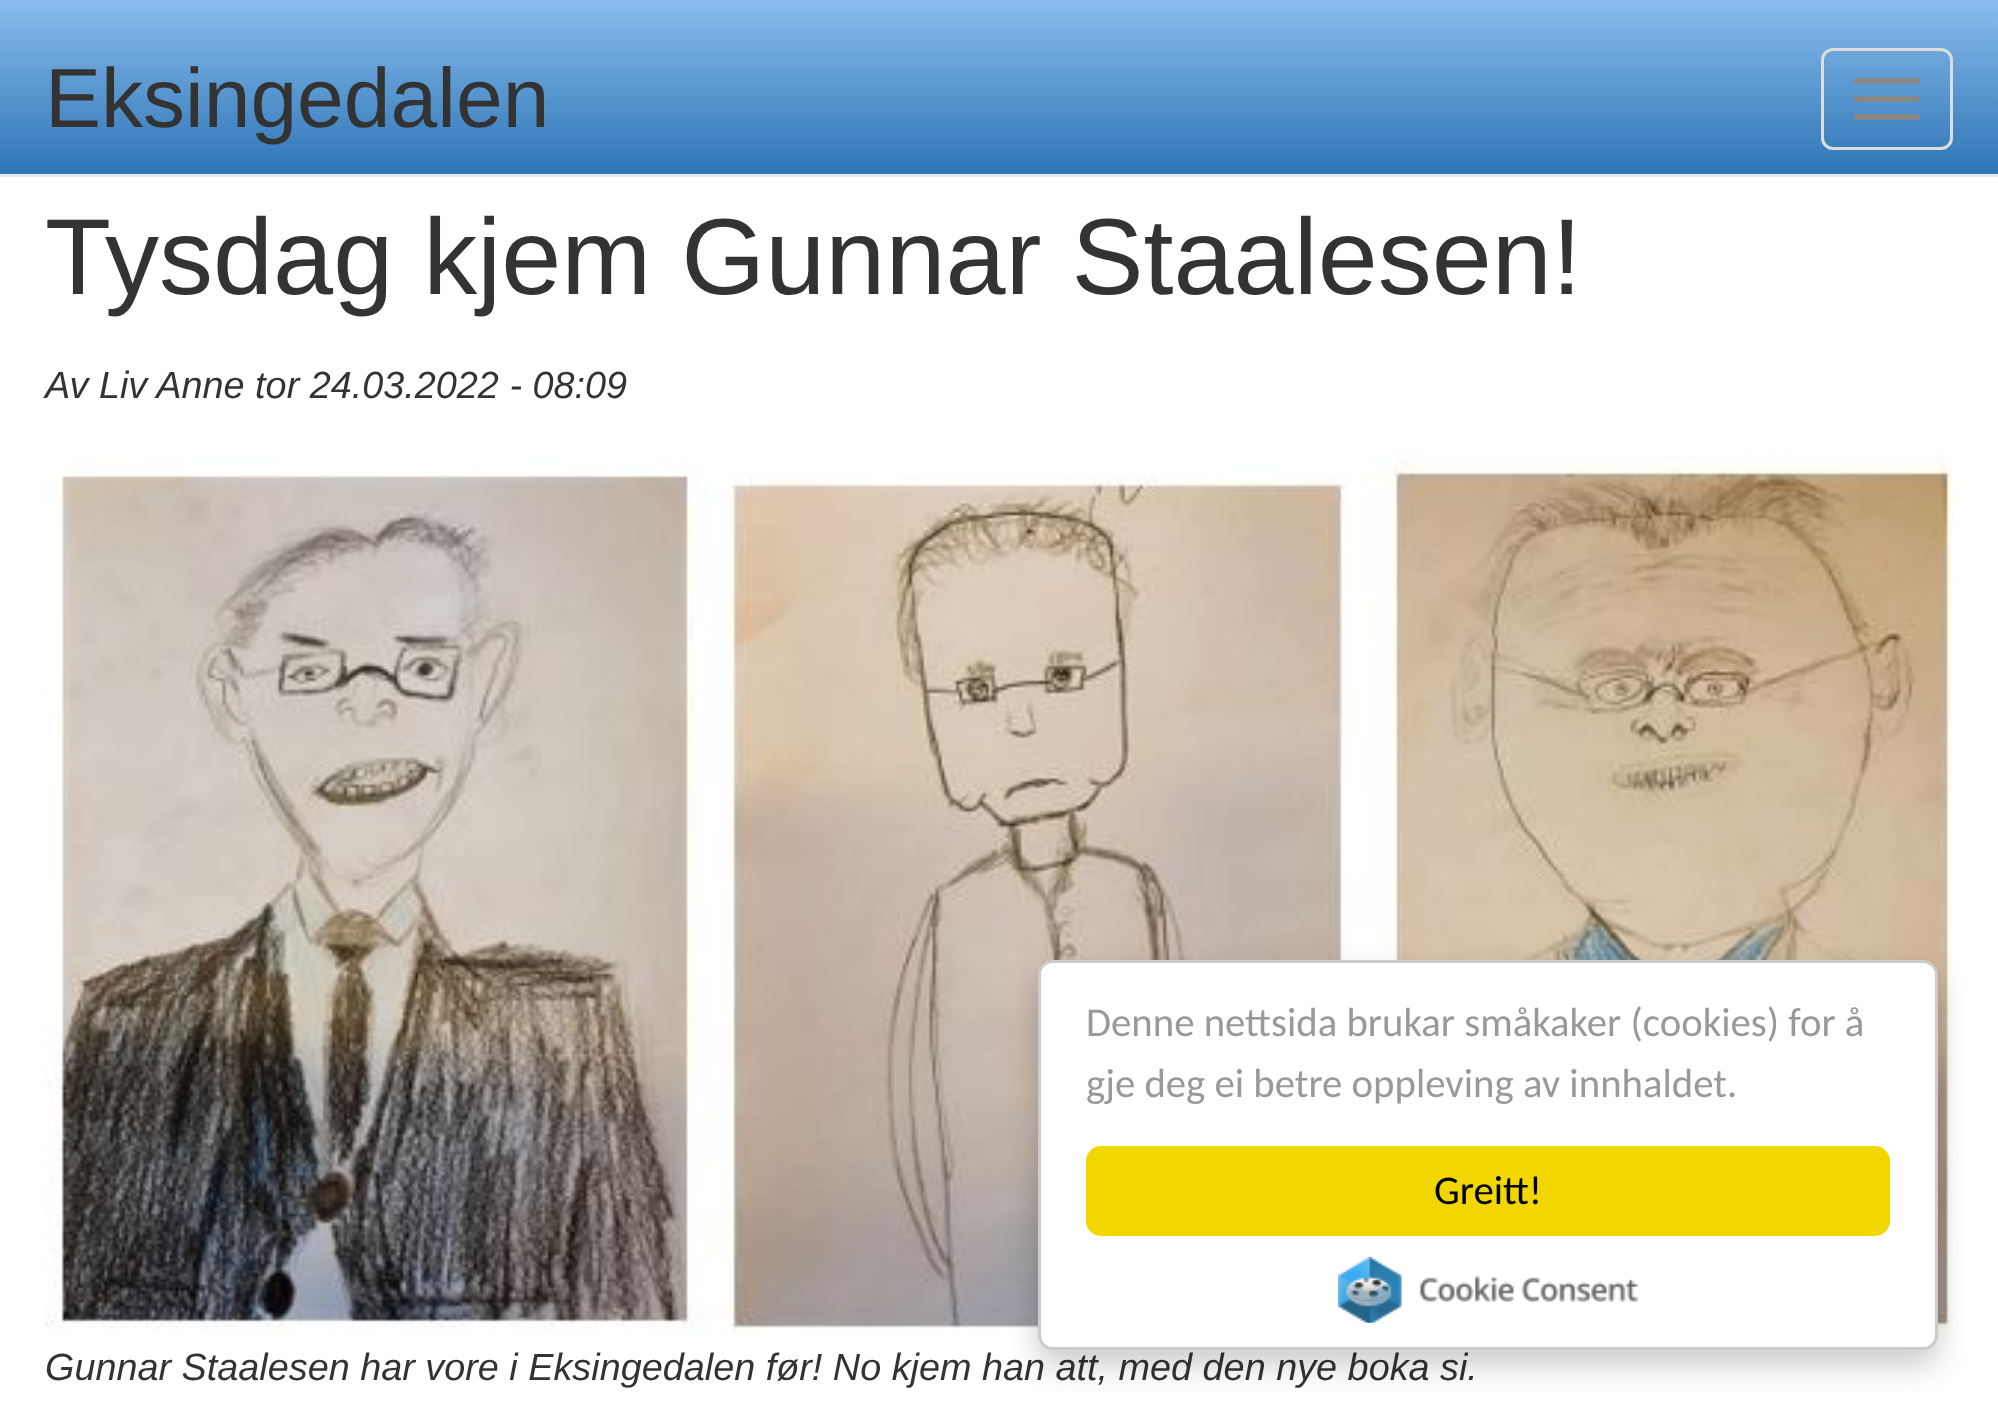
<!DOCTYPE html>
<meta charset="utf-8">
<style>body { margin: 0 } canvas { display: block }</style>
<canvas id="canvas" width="1998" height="1408"></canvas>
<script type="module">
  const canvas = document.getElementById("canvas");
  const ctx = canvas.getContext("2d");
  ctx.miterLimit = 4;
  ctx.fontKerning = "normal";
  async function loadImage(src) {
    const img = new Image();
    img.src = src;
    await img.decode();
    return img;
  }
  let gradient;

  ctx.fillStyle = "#ffffff";
  ctx.fillRect(0, 0, 1998, 1408);
  gradient = ctx.createLinearGradient(999, 0, 999, 174);
  gradient.addColorStop(0, "#88bcec");
  gradient.addColorStop(1, "#2e75b6");
  ctx.fillStyle = gradient;
  ctx.fillRect(0, 0, 1998, 174);
  ctx.fillStyle = "#e7e7e7";
  ctx.fillRect(0, 174, 1998, 3);
  ctx.font = "84px Liberation Sans";
  ctx.fillStyle = "#333333";
  ctx.fillText("Eksingedalen", 45, 127);
  ctx.beginPath();
  ctx.roundRect(1822.5, 49.5, 129, 99, 10.5);
  ctx.strokeStyle = "#dddddd";
  ctx.lineWidth = 3;
  ctx.stroke();
  ctx.fillStyle = "#888888";
  ctx.beginPath();
  ctx.roundRect(1854, 78, 66, 6, 3);
  ctx.fill();
  ctx.beginPath();
  ctx.roundRect(1854, 96, 66, 6, 3);
  ctx.fill();
  ctx.beginPath();
  ctx.roundRect(1854, 114, 66, 6, 3);
  ctx.fill();
  ctx.font = "108px Liberation Sans";
  ctx.fillStyle = "#333333";
  ctx.fillText("Tysdag kjem Gunnar Staalesen!", 45, 294);
  ctx.font = "italic 37.8px Liberation Sans";
  ctx.fillText("Av Liv Anne tor 24.03.2022 - 08:09", 45, 398);
  ctx.drawImage(await loadImage("img1.png"), 45, 453, 1908, 884);
  ctx.fillText("Gunnar Staalesen har vore i Eksingedalen før! No kjem han att, med den nye boka si.", 45, 1380);
  ctx.fillStyle = "rgba(0, 0, 0, 0.2)";
  ctx.filter = "blur(15px)";
  ctx.beginPath();
  ctx.roundRect(1038, 975, 900, 390, 15);
  ctx.fill();
  ctx.filter = "none";
  ctx.fillStyle = "#ffffff";
  ctx.beginPath();
  ctx.roundRect(1039.5, 961.5, 897, 387, 13.5);
  ctx.fill();
  ctx.strokeStyle = "#cccccc";
  ctx.stroke();
  ctx.font = "40.75px Carlito";
  ctx.fillStyle = "#999999";
  ctx.fillText("Denne nettsida brukar småkaker (cookies) for å", 1086, 1036);
  ctx.fillText("gje deg ei betre oppleving av innhaldet.", 1086, 1097);
  ctx.fillStyle = "#f1d600";
  ctx.beginPath();
  ctx.roundRect(1086, 1146, 804, 90, 15);
  ctx.fill();
  ctx.fillStyle = "#000000";
  ctx.fillText("Greitt!", 1434, 1204);
  ctx.drawImage(await loadImage("img2.png"), 1338, 1257, 300, 66);
</script>
